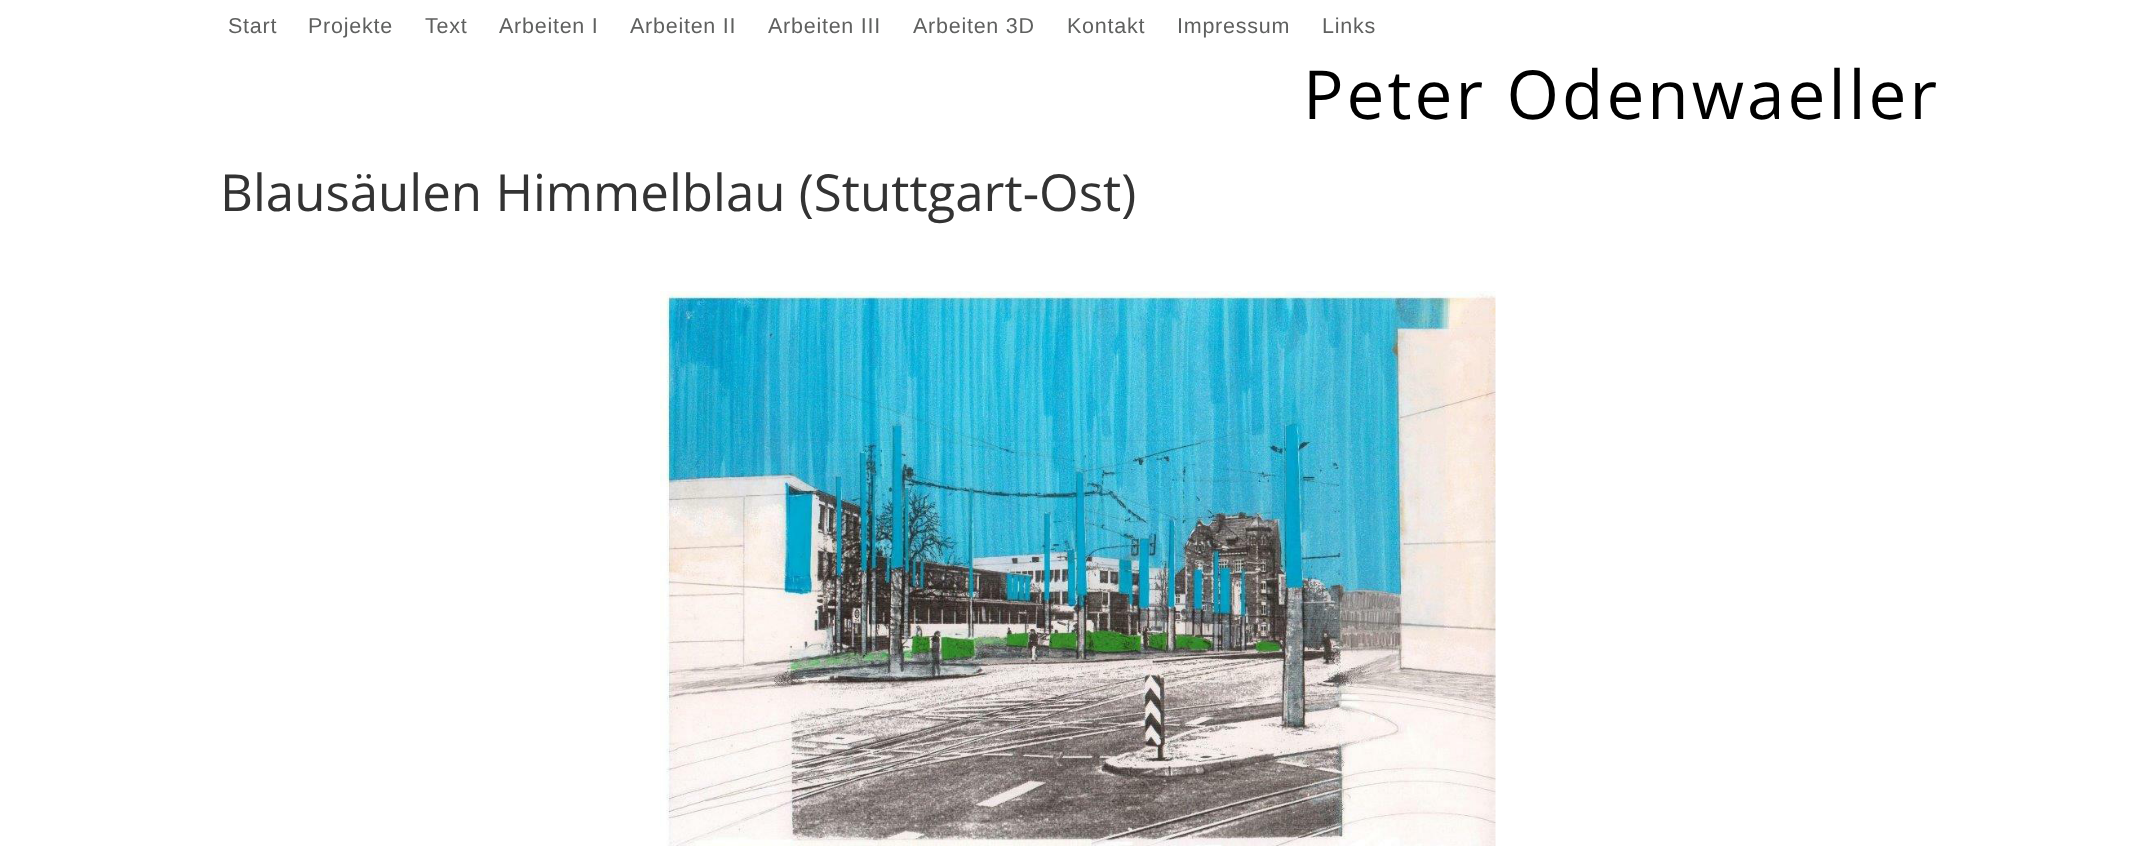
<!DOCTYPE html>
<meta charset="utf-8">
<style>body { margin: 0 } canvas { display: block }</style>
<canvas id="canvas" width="2155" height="857"></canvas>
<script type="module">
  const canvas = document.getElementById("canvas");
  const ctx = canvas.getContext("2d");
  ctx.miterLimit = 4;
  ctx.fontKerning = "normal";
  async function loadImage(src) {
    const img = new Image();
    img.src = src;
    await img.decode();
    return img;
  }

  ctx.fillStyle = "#ffffff";
  ctx.fillRect(0, 0, 2155, 857);
  ctx.letterSpacing = "0.75px";
  ctx.font = "21.5px Liberation Sans";
  ctx.fillStyle = "#5f605f";
  ctx.fillText("Start", 228, 33);
  ctx.fillText("Projekte", 308, 33);
  ctx.fillText("Text", 425, 33);
  ctx.fillText("Arbeiten I", 499, 33);
  ctx.fillText("Arbeiten II", 630, 33);
  ctx.fillText("Arbeiten III", 768, 33);
  ctx.fillText("Arbeiten 3D", 913, 33);
  ctx.fillText("Kontakt", 1067, 33);
  ctx.fillText("Impressum", 1177, 33);
  ctx.fillText("Links", 1322, 33);
  ctx.letterSpacing = "3px";
  ctx.font = "67.5px Open Sans";
  ctx.fillStyle = "#000000";
  ctx.fillText("Peter Odenwaeller", 1303, 119);
  ctx.letterSpacing = "0px";
  ctx.font = "51px Open Sans";
  ctx.fillStyle = "#333333";
  ctx.fillText("Blausäulen Himmelblau (Stuttgart-Ost)", 220, 211);
  ctx.drawImage(await loadImage("img1.png"), 660, 291, 836, 555);
</script>
